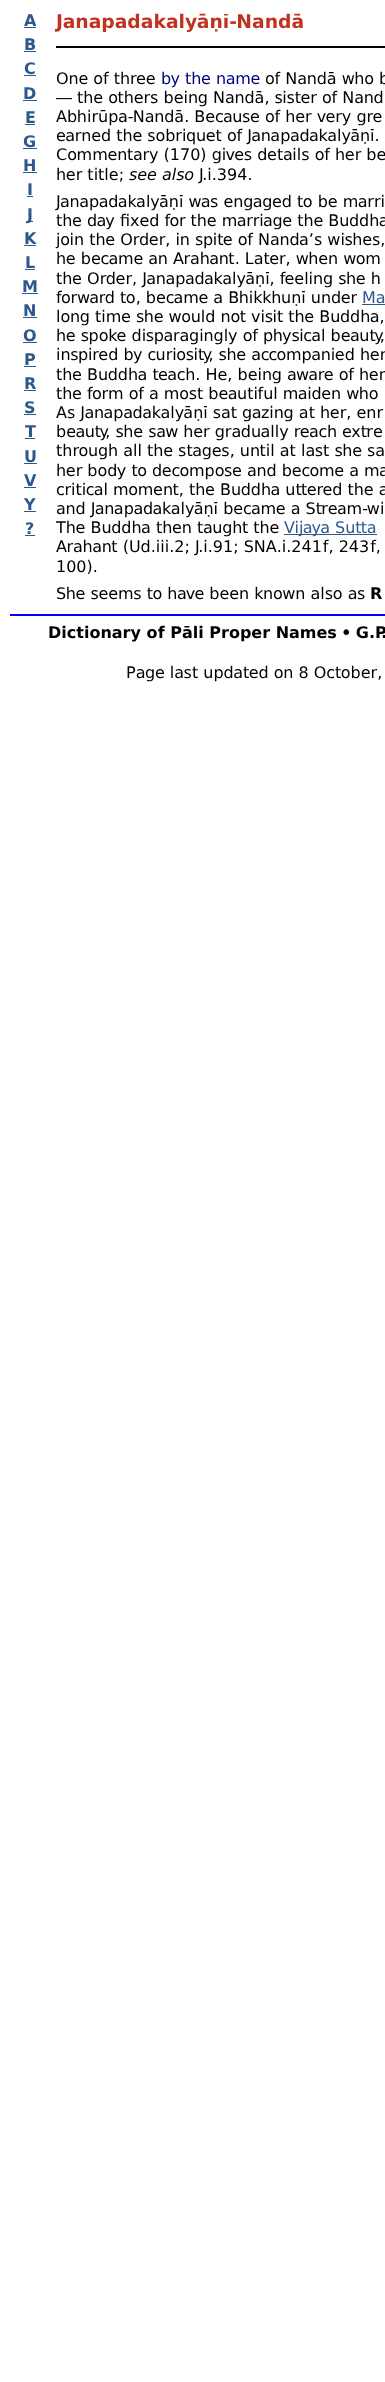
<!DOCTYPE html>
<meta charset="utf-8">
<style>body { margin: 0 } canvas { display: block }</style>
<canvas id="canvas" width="385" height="2382"></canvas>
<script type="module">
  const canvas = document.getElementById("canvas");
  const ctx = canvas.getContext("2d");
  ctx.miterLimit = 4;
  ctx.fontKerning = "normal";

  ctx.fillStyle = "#ffffff";
  ctx.fillRect(0, 0, 385, 2382);
  ctx.font = "bold 16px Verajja";
  ctx.fillStyle = "#2d588b";
  ctx.fillText("A", 24, 26);
  ctx.fillRect(24, 27, 12, 1);
  ctx.fillText("B", 24, 50);
  ctx.fillRect(24, 51, 12, 1);
  ctx.fillText("C", 24, 74);
  ctx.fillRect(24, 75, 12, 1);
  ctx.fillText("D", 23, 99);
  ctx.fillRect(23, 100, 14, 1);
  ctx.fillText("E", 25, 123);
  ctx.fillRect(25, 124, 10, 1);
  ctx.fillText("G", 23, 147);
  ctx.fillRect(23, 148, 14, 1);
  ctx.fillText("H", 23, 171);
  ctx.fillRect(23, 172, 14, 1);
  ctx.fillText("I", 27, 195);
  ctx.fillRect(27, 196, 6, 1);
  ctx.fillRect(27, 221, 6, 1);
  ctx.fillText("J", 27, 220);
  ctx.fillText("K", 24, 244);
  ctx.fillRect(24, 245, 12, 1);
  ctx.fillText("L", 25, 268);
  ctx.fillRect(25, 269, 10, 1);
  ctx.fillText("M", 22, 292);
  ctx.fillRect(22, 293, 16, 1);
  ctx.fillText("N", 23, 316);
  ctx.fillRect(23, 317, 14, 1);
  ctx.fillText("O", 23, 341);
  ctx.fillRect(23, 342, 14, 1);
  ctx.fillText("P", 24, 365);
  ctx.fillRect(24, 366, 12, 1);
  ctx.fillText("R", 24, 389);
  ctx.fillRect(24, 390, 12, 1);
  ctx.fillText("S", 24, 413);
  ctx.fillRect(24, 414, 12, 1);
  ctx.fillText("T", 25, 437);
  ctx.fillRect(25, 438, 10, 1);
  ctx.fillText("U", 24, 462);
  ctx.fillRect(24, 463, 13, 1);
  ctx.fillText("V", 24, 486);
  ctx.fillRect(24, 487, 12, 1);
  ctx.fillText("Y", 24, 510);
  ctx.fillRect(24, 511, 12, 1);
  ctx.fillText("?", 25, 534);
  ctx.fillRect(25, 535, 10, 1);
  ctx.font = "bold 18.75px Verajja";
  ctx.fillStyle = "#c03321";
  ctx.fillText("Janapadakalyāṇī-Nandā", 56, 28);
  ctx.fillStyle = "#000000";
  ctx.fillRect(56, 46, 329, 2);
  ctx.font = "16px Verajja";
  ctx.fillText("One of three", 56, 84);
  ctx.fillStyle = "#000080";
  ctx.fillText("by the name", 161, 84);
  ctx.fillStyle = "#000000";
  ctx.fillText("of Nandā who b", 265, 84);
  ctx.fillText("— the others being Nandā, sister of Nand", 56, 103);
  ctx.fillText("Abhirūpa-Nandā. Because of her very gre", 56, 122);
  ctx.fillText("earned the sobriquet of Janapadakalyāṇī.", 56, 141);
  ctx.fillText("Commentary (170) gives details of her be", 56, 160);
  ctx.fillText("her title;", 56, 180);
  ctx.font = "italic 16px Verajja";
  ctx.fillText("see also", 129, 180);
  ctx.font = "16px Verajja";
  ctx.fillText("J.i.394.", 199, 180);
  ctx.fillText("Janapadakalyāṇī was engaged to be marri", 56, 207);
  ctx.fillText("the day fixed for the marriage the Buddha", 56, 226);
  ctx.fillText("join the Order, in spite of Nanda’s wishes,", 56, 245);
  ctx.fillText("he became an Arahant. Later, when wom", 56, 264);
  ctx.fillText("the Order, Janapadakalyāṇī, feeling she h", 56, 284);
  ctx.fillText("forward to, became a Bhikkhuṇī under", 56, 303);
  ctx.fillStyle = "#2d588b";
  ctx.fillText("Ma", 362, 303);
  ctx.fillRect(362, 304, 23, 1);
  ctx.fillStyle = "#000000";
  ctx.fillText("long time she would not visit the Buddha,", 56, 322);
  ctx.fillText("he spoke disparagingly of physical beauty,", 56, 341);
  ctx.fillText("inspired by curiosity, she accompanied her", 56, 360);
  ctx.fillText("the Buddha teach. He, being aware of her", 56, 380);
  ctx.fillText("the form of a most beautiful maiden who", 56, 399);
  ctx.fillText("As Janapadakalyāṇī sat gazing at her, enr", 56, 418);
  ctx.fillText("beauty, she saw her gradually reach extre", 56, 437);
  ctx.fillText("through all the stages, until at last she sa", 56, 456);
  ctx.fillText("her body to decompose and become a ma", 56, 476);
  ctx.fillText("critical moment, the Buddha uttered the a", 56, 495);
  ctx.fillText("and Janapadakalyāṇī became a Stream-wi", 56, 514);
  ctx.fillText("The Buddha then taught the", 56, 533);
  ctx.fillStyle = "#2d588b";
  ctx.fillRect(284, 534, 93, 1);
  ctx.fillText("Vijaya Sutta", 284, 533);
  ctx.fillStyle = "#000000";
  ctx.fillText("Arahant (Ud.iii.2; J.i.91; SNA.i.241 f, 243 f,", 56, 552);
  ctx.fillText("100).", 56, 572);
  ctx.fillText("She seems to have been known also as", 56, 599);
  ctx.font = "bold 16px Verajja";
  ctx.fillText("R", 370, 599);
  ctx.fillStyle = "#0000ff";
  ctx.fillRect(10, 614, 375, 2);
  ctx.fillStyle = "#000000";
  ctx.fillText("Dictionary of Pāli Proper Names • G.P.", 48, 638);
  ctx.font = "16px Verajja";
  ctx.fillText("Page last updated on 8 October,", 126, 678);
</script>
